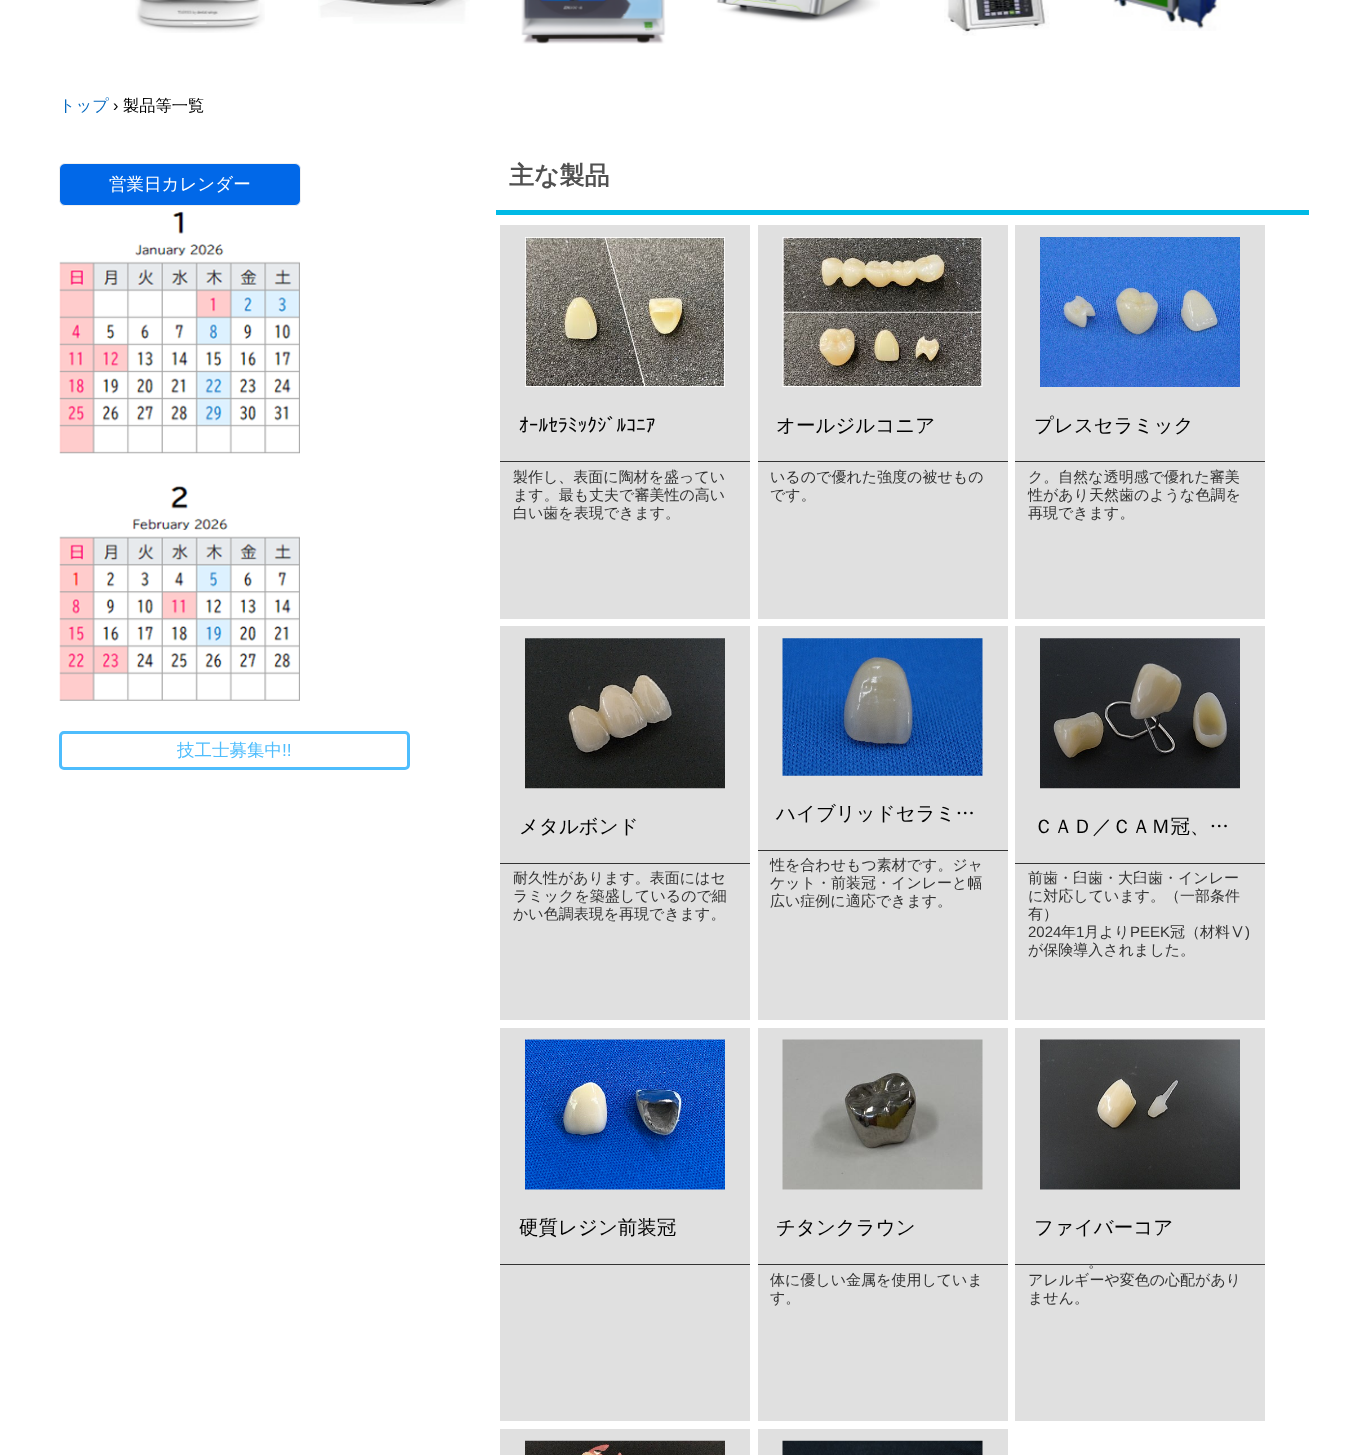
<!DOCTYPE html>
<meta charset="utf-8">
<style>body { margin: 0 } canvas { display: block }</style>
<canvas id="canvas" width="1367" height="1455"></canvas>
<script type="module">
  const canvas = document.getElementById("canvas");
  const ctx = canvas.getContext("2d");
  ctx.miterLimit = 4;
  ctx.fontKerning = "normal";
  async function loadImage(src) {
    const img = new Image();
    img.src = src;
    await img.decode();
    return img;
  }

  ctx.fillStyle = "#ffffff";
  ctx.fillRect(0, 0, 1367, 1455);
  ctx.drawImage(await loadImage("img1.png"), 135, 0, 130, 33);
  ctx.drawImage(await loadImage("img2.png"), 318, 0, 152, 24);
  ctx.drawImage(await loadImage("img3.png"), 521, 0, 145, 44);
  ctx.drawImage(await loadImage("img4.png"), 716, 0, 164, 23);
  ctx.drawImage(await loadImage("img5.png"), 944, 0, 106, 36);
  ctx.drawImage(await loadImage("img6.png"), 1113, 0, 108, 31);
  ctx.font = "500 16.25px WenQuanYi Zen Hei";
  ctx.fillStyle = "#0468bf";
  ctx.fillText("トップ", 59, 111);
  ctx.font = "16.25px Liberation Sans";
  ctx.fillStyle = "#000000";
  ctx.fillText("›", 113, 111);
  ctx.font = "500 16.25px WenQuanYi Zen Hei";
  ctx.fillText("製品等一覧", 123, 111);
  ctx.fillStyle = "#0168e8";
  ctx.beginPath();
  ctx.roundRect(59.5, 163.5, 241, 42, 5.5);
  ctx.fill();
  ctx.strokeStyle = "#f0f0f0";
  ctx.stroke();
  ctx.font = "500 17.5px WenQuanYi Zen Hei";
  ctx.fillStyle = "#ffffff";
  ctx.fillText("営業日カレンダー", 109, 190);
  ctx.drawImage(await loadImage("img7.png"), 59, 211, 241, 243);
  ctx.drawImage(await loadImage("img8.png"), 59, 486, 241, 215);
  ctx.beginPath();
  ctx.roundRect(60.5, 732.5, 348, 36, 3.5);
  ctx.strokeStyle = "#4ebdfd";
  ctx.lineWidth = 3;
  ctx.stroke();
  ctx.fillStyle = "#4ebdfd";
  ctx.fillText("技工士募集中", 177, 756);
  ctx.font = "17.5px Liberation Sans";
  ctx.fillText("!!", 282, 756);
  ctx.fillStyle = "#00bae6";
  ctx.fillRect(496, 210, 813, 5);
  ctx.font = "bold 25px WenQuanYi Zen Hei";
  ctx.fillStyle = "#515151";
  ctx.fillText("主な製品", 509, 184);
  ctx.fillStyle = "#e0e0e0";
  ctx.fillRect(500, 225, 250, 394);
  ctx.drawImage(await loadImage("img9.png"), 525, 237, 200, 150);
  ctx.fillStyle = "#333333";
  ctx.fillRect(500, 461, 250, 1);
  ctx.font = "19.5px IPAPGothic";
  ctx.fillStyle = "#000000";
  ctx.fillText("ｵｰﾙｾﾗﾐｯｸｼﾞﾙｺﾆｱ", 519, 432);
  ctx.font = "500 15px WenQuanYi Zen Hei";
  ctx.fillStyle = "#333333";
  ctx.fillText("製作し、表面に陶材を盛ってい", 513, 482);
  ctx.fillText("ます。最も丈夫で審美性の高い", 513, 500);
  ctx.fillText("白い歯を表現できます。", 513, 518);
  ctx.fillStyle = "#e0e0e0";
  ctx.fillRect(758, 225, 250, 394);
  ctx.drawImage(await loadImage("img10.png"), 782, 237, 201, 150);
  ctx.fillStyle = "#333333";
  ctx.fillRect(758, 461, 250, 1);
  ctx.font = "500 19.5px WenQuanYi Zen Hei";
  ctx.fillStyle = "#000000";
  ctx.fillText("オールジルコニア", 776, 432);
  ctx.font = "500 15px WenQuanYi Zen Hei";
  ctx.fillStyle = "#333333";
  ctx.fillText("いるので優れた強度の被せもの", 770, 482);
  ctx.fillText("です。", 770, 500);
  ctx.fillStyle = "#e0e0e0";
  ctx.fillRect(1015, 225, 250, 394);
  ctx.drawImage(await loadImage("img11.png"), 1040, 237, 200, 150);
  ctx.fillStyle = "#333333";
  ctx.fillRect(1015, 461, 250, 1);
  ctx.font = "500 19.5px WenQuanYi Zen Hei";
  ctx.fillStyle = "#000000";
  ctx.fillText("プレスセラミック", 1034, 432);
  ctx.font = "500 15px WenQuanYi Zen Hei";
  ctx.fillStyle = "#333333";
  ctx.fillText("ク。自然な透明感で優れた審美", 1028, 482);
  ctx.fillText("性があり天然歯のような色調を", 1028, 500);
  ctx.fillText("再現できます。", 1028, 518);
  ctx.fillStyle = "#e0e0e0";
  ctx.fillRect(500, 626, 250, 394);
  ctx.drawImage(await loadImage("img12.png"), 525, 638, 200, 151);
  ctx.fillStyle = "#333333";
  ctx.fillRect(500, 863, 250, 1);
  ctx.font = "500 19.5px WenQuanYi Zen Hei";
  ctx.fillStyle = "#000000";
  ctx.fillText("メタルボンド", 519, 833);
  ctx.font = "500 15px WenQuanYi Zen Hei";
  ctx.fillStyle = "#333333";
  ctx.fillText("耐久性があります。表面にはセ", 513, 883);
  ctx.fillText("ラミックを築盛しているので細", 513, 901);
  ctx.fillText("かい色調表現を再現できます。", 513, 919);
  ctx.fillStyle = "#e0e0e0";
  ctx.fillRect(758, 626, 250, 394);
  ctx.drawImage(await loadImage("img13.png"), 782, 638, 201, 138);
  ctx.fillStyle = "#333333";
  ctx.fillRect(758, 850, 250, 1);
  ctx.font = "500 19.5px WenQuanYi Zen Hei";
  ctx.fillStyle = "#000000";
  ctx.fillText("ハイブリッドセラミ…", 776, 820);
  ctx.font = "500 15px WenQuanYi Zen Hei";
  ctx.fillStyle = "#333333";
  ctx.fillText("性を合わせもつ素材です。ジャ", 770, 870);
  ctx.fillText("ケット・前装冠・インレーと幅", 770, 888);
  ctx.fillText("広い症例に適応できます。", 770, 906);
  ctx.fillStyle = "#e0e0e0";
  ctx.fillRect(1015, 626, 250, 394);
  ctx.drawImage(await loadImage("img14.png"), 1040, 638, 200, 151);
  ctx.fillStyle = "#333333";
  ctx.fillRect(1015, 863, 250, 1);
  ctx.font = "500 19.5px WenQuanYi Zen Hei";
  ctx.fillStyle = "#000000";
  ctx.fillText("ＣＡＤ／ＣＡＭ冠、…", 1034, 833);
  ctx.font = "500 15px WenQuanYi Zen Hei";
  ctx.fillStyle = "#333333";
  ctx.fillText("前歯・臼歯・大臼歯・インレー", 1028, 883);
  ctx.fillText("に対応しています。（一部条件", 1028, 901);
  ctx.fillText("有）", 1028, 919);
  ctx.font = "15px Liberation Sans";
  ctx.fillText("2024", 1028, 937);
  ctx.font = "500 15px WenQuanYi Zen Hei";
  ctx.fillText("年", 1061, 937);
  ctx.font = "15px Liberation Sans";
  ctx.fillText("1", 1076, 937);
  ctx.font = "500 15px WenQuanYi Zen Hei";
  ctx.fillText("月より", 1084, 937);
  ctx.font = "15px Liberation Sans";
  ctx.fillText("PEEK", 1130, 937);
  ctx.font = "500 15px WenQuanYi Zen Hei";
  ctx.fillText("冠（材料Ⅴ", 1170, 937);
  ctx.font = "15px Liberation Sans";
  ctx.fillText(")", 1245, 937);
  ctx.font = "500 15px WenQuanYi Zen Hei";
  ctx.fillText("が保険導入されました。", 1028, 955);
  ctx.fillStyle = "#e0e0e0";
  ctx.fillRect(500, 1028, 250, 393);
  ctx.drawImage(await loadImage("img15.png"), 525, 1039, 200, 151);
  ctx.fillStyle = "#333333";
  ctx.fillRect(500, 1264, 250, 1);
  ctx.font = "500 19.5px WenQuanYi Zen Hei";
  ctx.fillStyle = "#000000";
  ctx.fillText("硬質レジン前装冠", 519, 1234);
  ctx.fillStyle = "#e0e0e0";
  ctx.fillRect(758, 1028, 250, 393);
  ctx.drawImage(await loadImage("img16.png"), 782, 1039, 201, 151);
  ctx.fillStyle = "#333333";
  ctx.fillRect(758, 1264, 250, 1);
  ctx.fillStyle = "#000000";
  ctx.fillText("チタンクラウン", 776, 1234);
  ctx.font = "500 15px WenQuanYi Zen Hei";
  ctx.fillStyle = "#333333";
  ctx.fillText("体に優しい金属を使用していま", 770, 1285);
  ctx.fillText("す。", 770, 1303);
  ctx.fillStyle = "#e0e0e0";
  ctx.fillRect(1015, 1028, 250, 393);
  ctx.drawImage(await loadImage("img17.png"), 1040, 1039, 200, 151);
  ctx.fillStyle = "#333333";
  ctx.fillRect(1015, 1264, 250, 1);
  ctx.font = "500 19.5px WenQuanYi Zen Hei";
  ctx.fillStyle = "#000000";
  ctx.fillText("ファイバーコア", 1034, 1234);
  ctx.font = "500 15px WenQuanYi Zen Hei";
  ctx.fillStyle = "#333333";
  ctx.fillText("。", 1088, 1267);
  ctx.fillText("アレルギーや変色の心配があり", 1028, 1285);
  ctx.fillText("ません。", 1028, 1303);
  ctx.fillStyle = "#e0e0e0";
  ctx.fillRect(500, 1429, 250, 26);
  ctx.drawImage(await loadImage("img18.png"), 525, 1440, 200, 15);
  ctx.fillRect(758, 1429, 250, 26);
  ctx.drawImage(await loadImage("img19.png"), 782, 1440, 201, 15);
</script>
